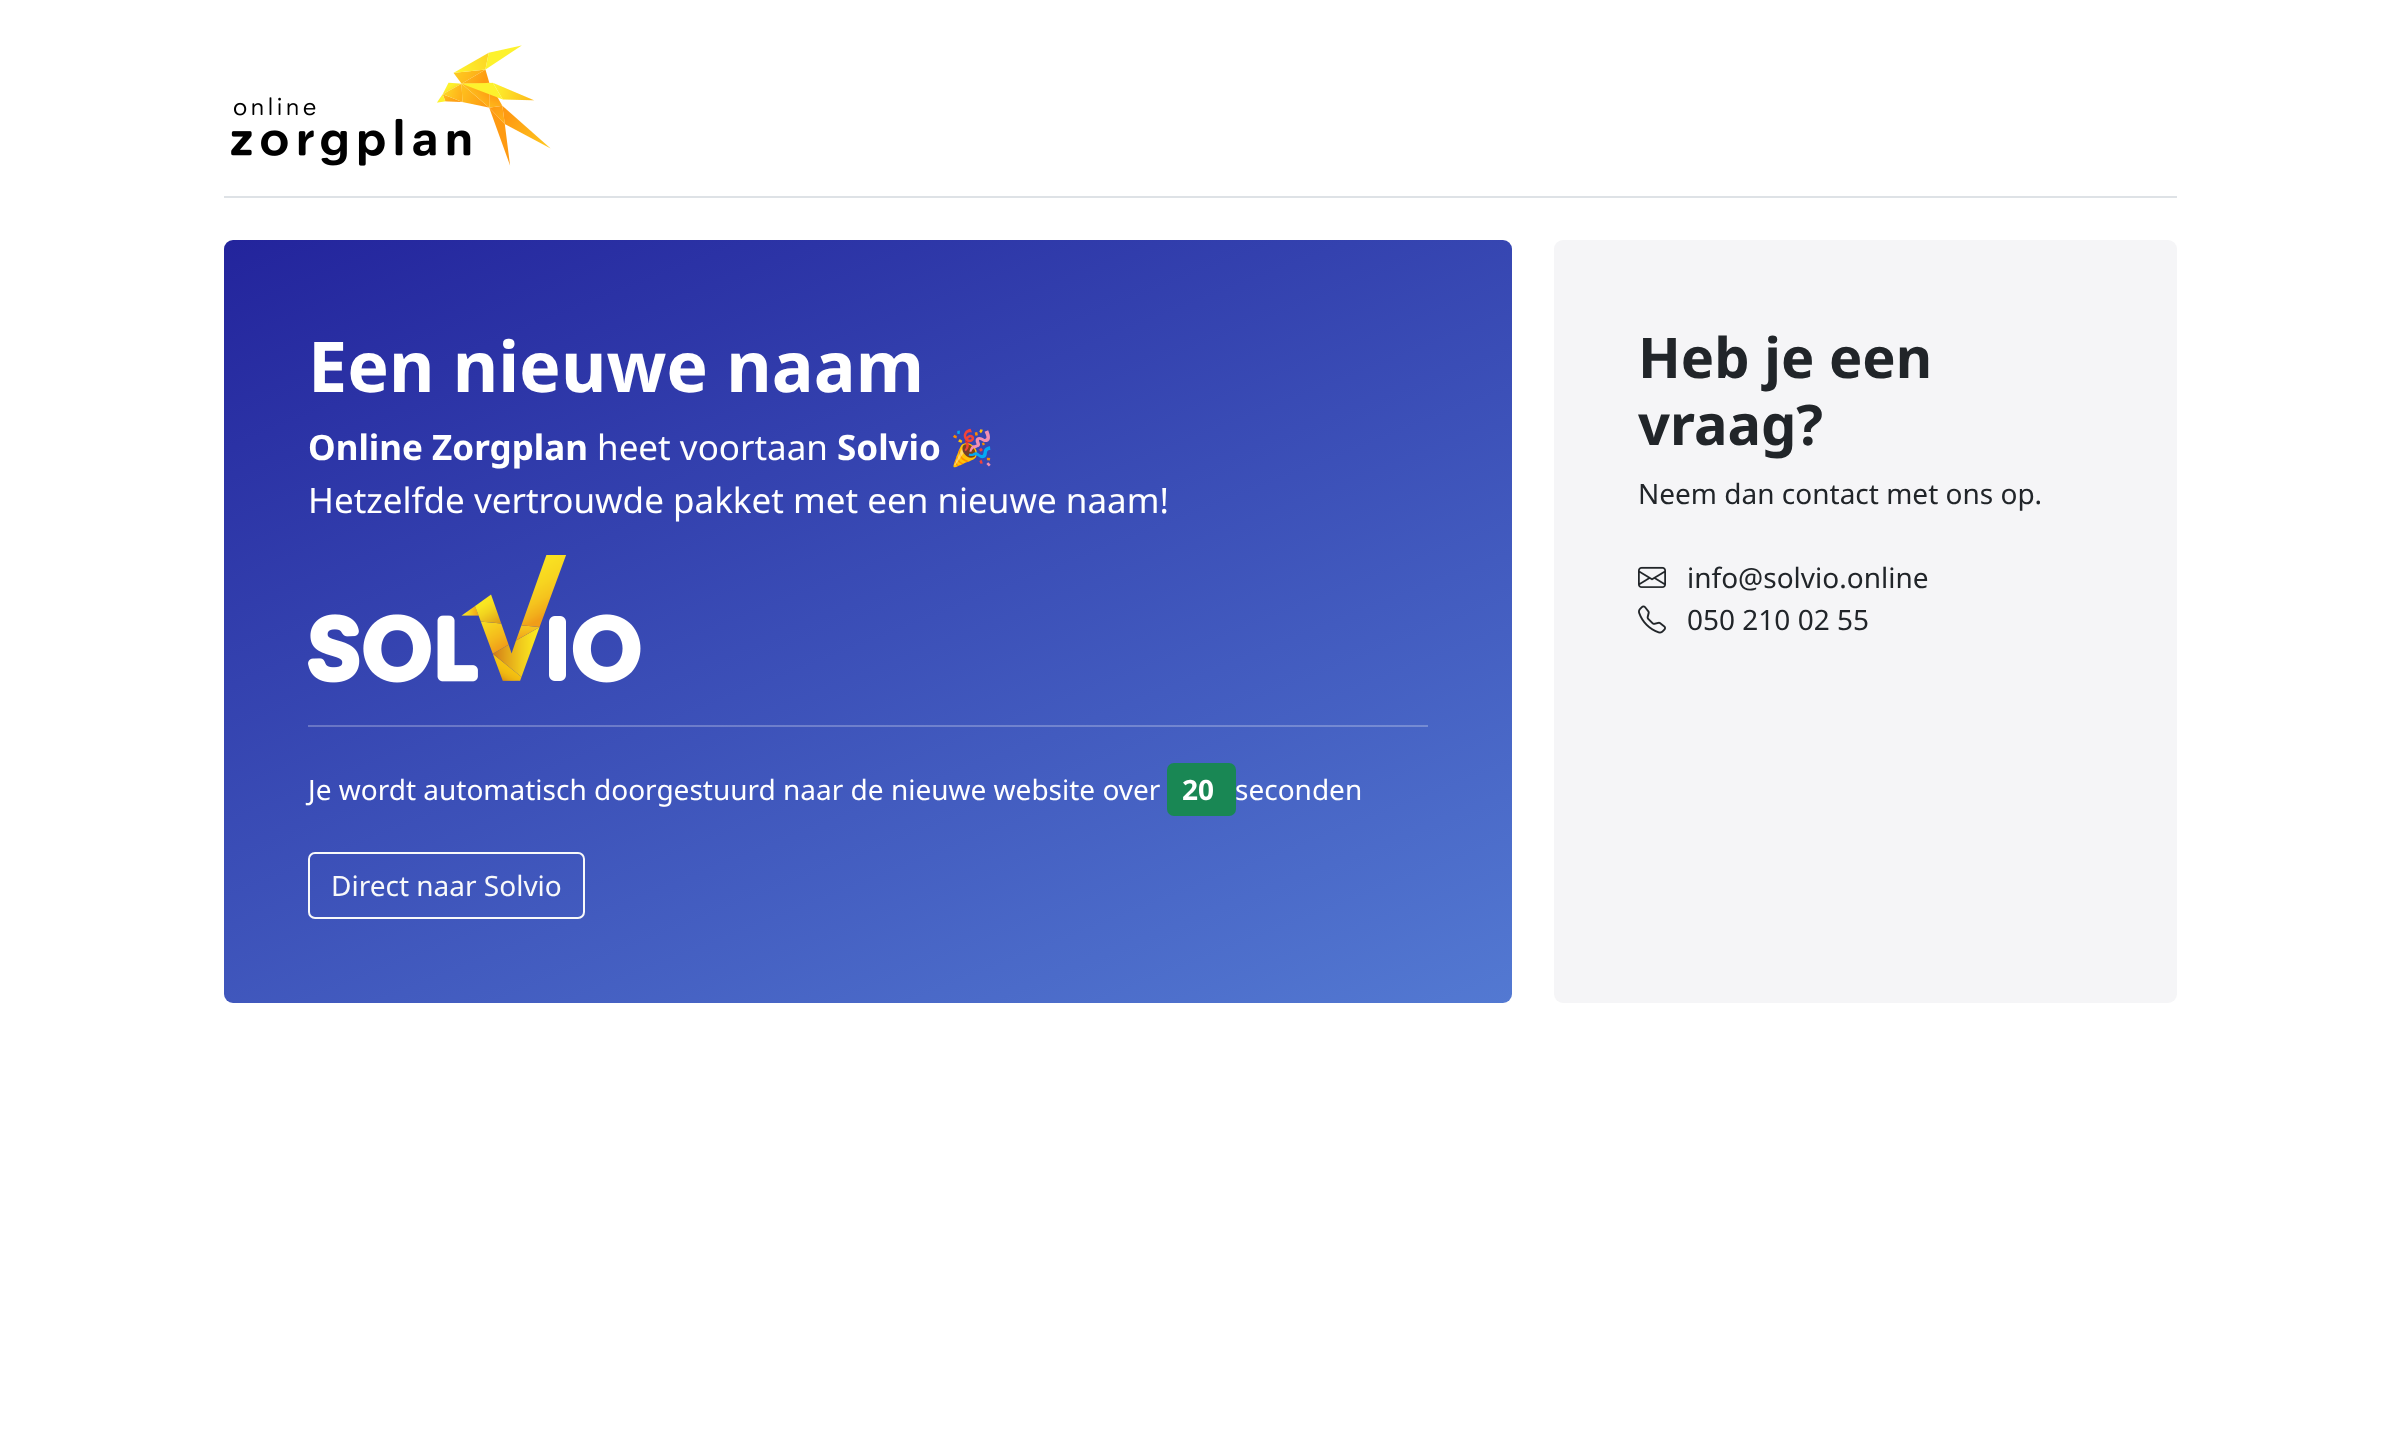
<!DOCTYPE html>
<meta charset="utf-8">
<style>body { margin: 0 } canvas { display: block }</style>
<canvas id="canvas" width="2401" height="1450"></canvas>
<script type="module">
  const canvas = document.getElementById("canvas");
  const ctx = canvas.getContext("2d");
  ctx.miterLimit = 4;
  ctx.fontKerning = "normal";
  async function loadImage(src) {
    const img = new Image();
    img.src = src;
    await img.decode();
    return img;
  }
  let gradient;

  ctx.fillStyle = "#ffffff";
  ctx.fillRect(0, 0, 2401, 1450);
  ctx.fillStyle = "#dee2e6";
  ctx.fillRect(224, 196, 1953, 2);
  ctx.drawImage(await loadImage("img1.png"), 231, 45, 320, 121);
  gradient = ctx.createLinearGradient(650, 71, 1086, 1172);
  gradient.addColorStop(0, "#23249c");
  gradient.addColorStop(1, "#5379d2");
  ctx.fillStyle = gradient;
  ctx.beginPath();
  ctx.roundRect(224, 240, 1288, 763, 9);
  ctx.fill();
  gradient = ctx.createLinearGradient(650, 71, 1086, 1172);
  gradient.addColorStop(0, "#5a5bb5");
  gradient.addColorStop(1, "#7e9bdd");
  ctx.fillStyle = gradient;
  ctx.fillRect(308, 725, 1120, 2);
  ctx.font = "bold 70px Noto Sans";
  ctx.fillStyle = "#ffffff";
  ctx.fillText("Een nieuwe naam", 308, 392);
  ctx.font = "bold 35px Noto Sans";
  ctx.fillText("Online Zorgplan", 308, 460);
  ctx.font = "35px Noto Sans";
  ctx.fillText("heet voortaan", 597, 460);
  ctx.font = "bold 35px Noto Sans";
  ctx.fillText("Solvio", 837, 460);
  ctx.font = "35px Noto Color Emoji";
  ctx.fillText("🎉", 950, 460);
  ctx.font = "35px Noto Sans";
  ctx.fillText("Hetzelfde vertrouwde pakket met een nieuwe naam!", 308, 513);
  ctx.drawImage(await loadImage("img2.png"), 308, 555, 333, 128);
  ctx.font = "28px Noto Sans";
  ctx.fillText("Je wordt automatisch doorgestuurd naar de nieuwe website over", 308, 800);
  ctx.fillStyle = "#198754";
  ctx.beginPath();
  ctx.roundRect(1167, 763, 48, 53, [7, 0, 0, 7]);
  ctx.fill();
  ctx.font = "bold 28px Noto Sans";
  ctx.fillStyle = "#ffffff";
  ctx.fillText("20", 1182, 800);
  ctx.fillStyle = "#198754";
  ctx.beginPath();
  ctx.roundRect(1215, 763, 21, 53, [0, 7, 7, 0]);
  ctx.fill();
  ctx.font = "28px Noto Sans";
  ctx.fillStyle = "#ffffff";
  ctx.fillText("seconden", 1235, 800);
  ctx.beginPath();
  ctx.roundRect(309, 853, 275, 65, 6);
  ctx.strokeStyle = "#f8f9fa";
  ctx.lineWidth = 2;
  ctx.stroke();
  ctx.fillStyle = "#f8f9fa";
  ctx.fillText("Direct naar Solvio", 331, 896);
  ctx.fillStyle = "#f5f5f7";
  ctx.beginPath();
  ctx.roundRect(1554, 240, 623, 763, 9);
  ctx.fill();
  ctx.font = "bold 56px Noto Sans";
  ctx.fillStyle = "#212529";
  ctx.fillText("Heb je een", 1638, 378);
  ctx.fillText("vraag?", 1638, 445);
  ctx.font = "28px Noto Sans";
  ctx.fillText("Neem dan contact met ons op.", 1638, 504);
  ctx.drawImage(await loadImage("img3.png"), 1638, 566, 28, 22);
  ctx.fillText("info@solvio.online", 1687, 588);
  ctx.drawImage(await loadImage("img4.png"), 1638, 605, 28, 29);
  ctx.fillText("050 210 02 55", 1687, 630);
</script>
